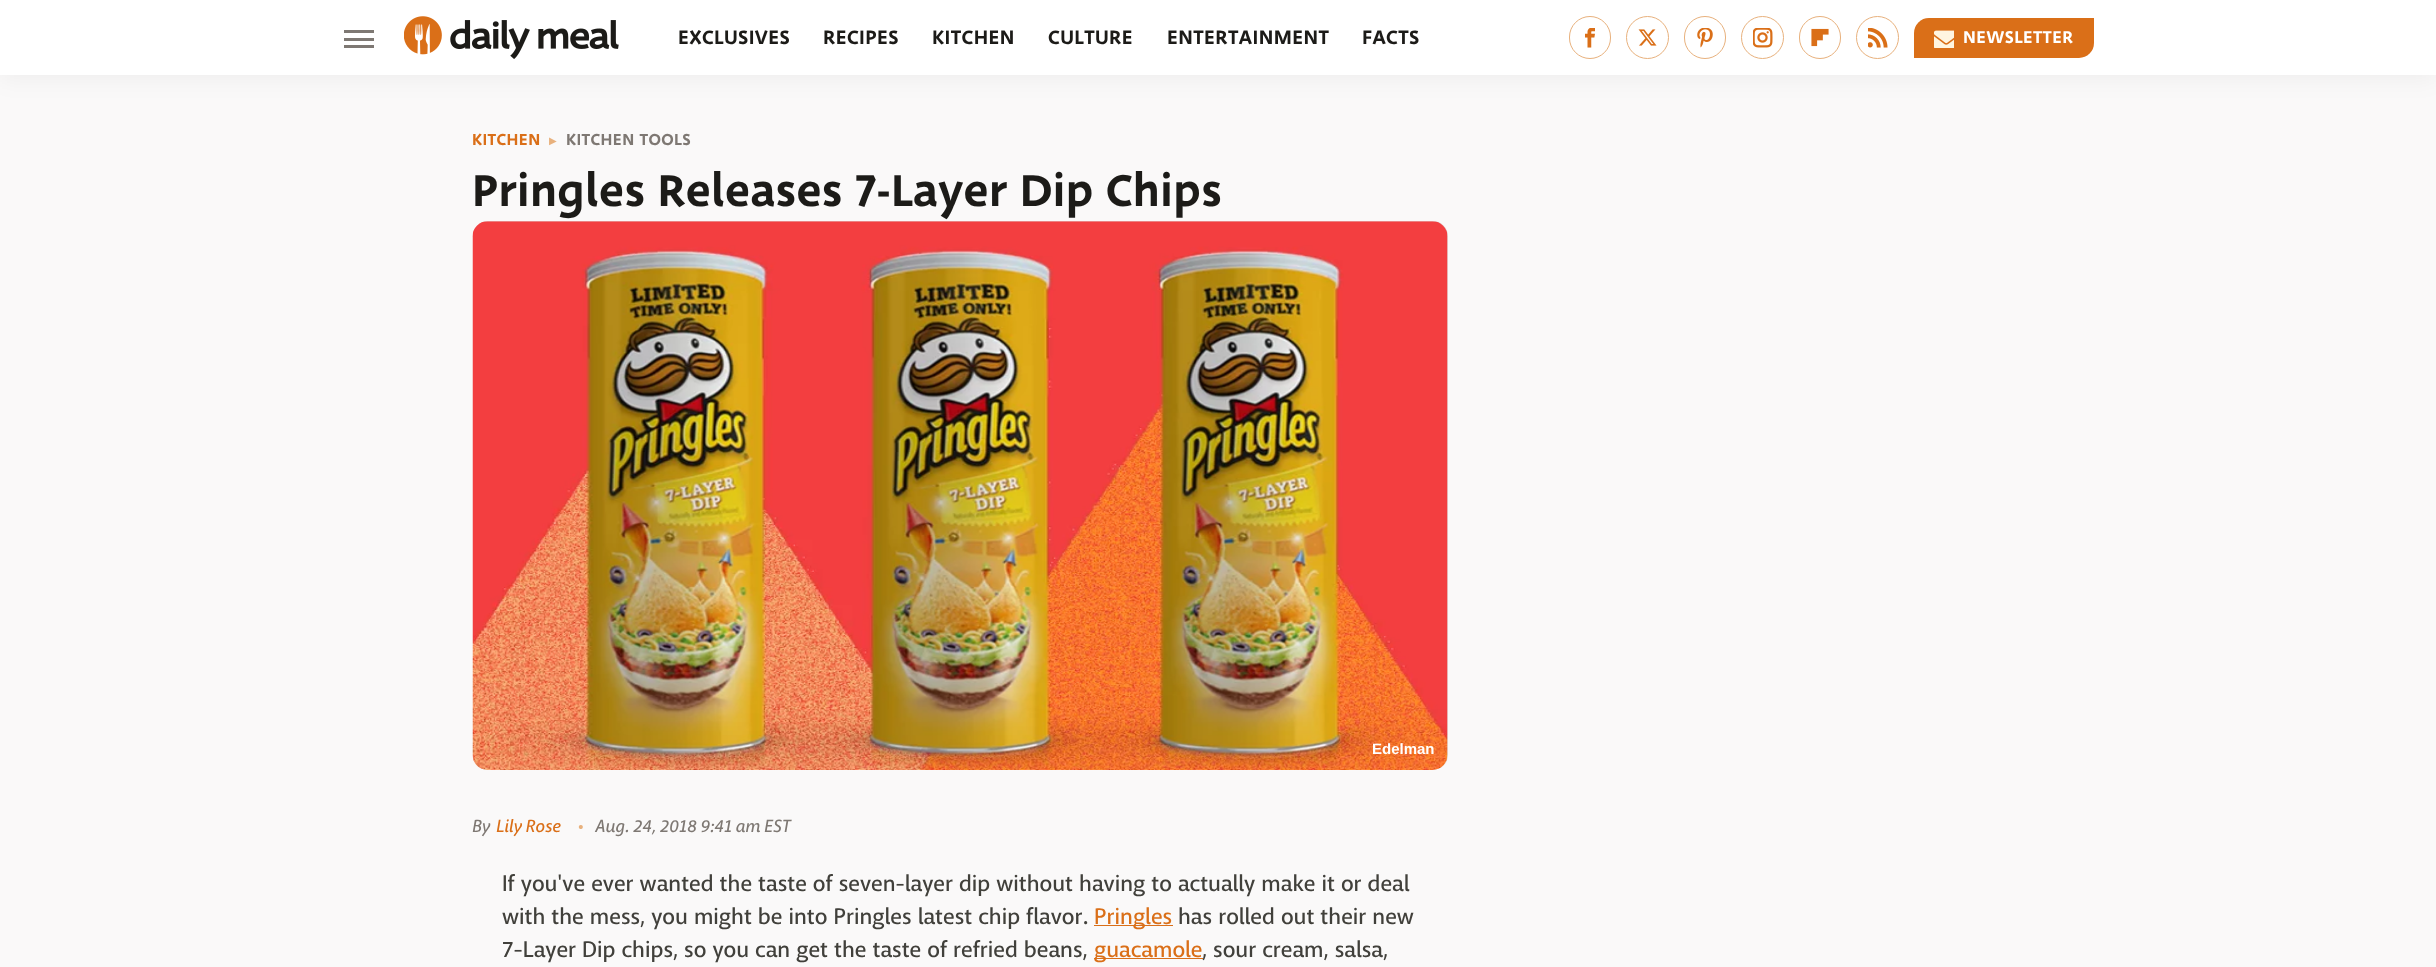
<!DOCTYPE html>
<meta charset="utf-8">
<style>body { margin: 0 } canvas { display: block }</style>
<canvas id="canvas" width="2436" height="967"></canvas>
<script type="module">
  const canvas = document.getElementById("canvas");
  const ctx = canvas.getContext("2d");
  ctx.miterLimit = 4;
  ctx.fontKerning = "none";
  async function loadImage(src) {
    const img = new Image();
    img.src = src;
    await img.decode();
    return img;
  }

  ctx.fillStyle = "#faf9f9";
  ctx.fillRect(0, 0, 2436, 967);
  ctx.fillStyle = "rgba(0, 0, 0, 0.05)";
  ctx.filter = "blur(12.5px)";
  ctx.beginPath();
  ctx.rect(0, 3, 2436, 75);
  ctx.fill();
  ctx.filter = "none";
  ctx.fillStyle = "#ffffff";
  ctx.fillRect(0, 0, 2436, 75);
  ctx.fillStyle = "#7e7873";
  ctx.fillRect(344, 30, 30, 3);
  ctx.fillRect(344, 38, 30, 3);
  ctx.fillRect(344, 45, 30, 3);
  ctx.drawImage(await loadImage("img1.png"), 404, 16, 215, 43);
  ctx.letterSpacing = "0.4px";
  ctx.font = "500 21.25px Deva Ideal";
  ctx.fillStyle = "#1c1b18";
  ctx.fillText("EXCLUSIVES", 678, 44);
  ctx.fillText("RECIPES", 823, 44);
  ctx.fillText("KITCHEN", 932, 44);
  ctx.fillText("CULTURE", 1048, 44);
  ctx.fillText("ENTERTAINMENT", 1167, 44);
  ctx.fillText("FACTS", 1362, 44);
  ctx.beginPath();
  ctx.roundRect(1569.5, 16.5, 41, 42, 20.5);
  ctx.strokeStyle = "#e8b17d";
  ctx.stroke();
  ctx.drawImage(await loadImage("img2.png"), 1585, 28, 10, 20);
  ctx.beginPath();
  ctx.arc(1647.5, 37.5, 21, 0, Math.PI * 2);
  ctx.stroke();
  ctx.drawImage(await loadImage("img3.png"), 1638, 29, 19, 17);
  ctx.beginPath();
  ctx.roundRect(1684.5, 16.5, 41, 42, 20.5);
  ctx.stroke();
  ctx.drawImage(await loadImage("img4.png"), 1697, 28, 16, 20);
  ctx.beginPath();
  ctx.arc(1762.5, 37.5, 21, 0, Math.PI * 2);
  ctx.stroke();
  ctx.drawImage(await loadImage("img5.png"), 1753, 28, 20, 20);
  ctx.beginPath();
  ctx.roundRect(1799.5, 16.5, 41, 42, 20.5);
  ctx.stroke();
  ctx.drawImage(await loadImage("img6.png"), 1811, 28, 18, 19);
  ctx.beginPath();
  ctx.arc(1877.5, 37.5, 21, 0, Math.PI * 2);
  ctx.stroke();
  ctx.drawImage(await loadImage("img7.png"), 1868, 28, 20, 20);
  ctx.fillStyle = "#da6f18";
  ctx.beginPath();
  ctx.roundRect(1914, 18, 180, 40, [15, 0, 15, 0]);
  ctx.fill();
  ctx.drawImage(await loadImage("img8.png"), 1934, 30, 20, 18);
  ctx.font = "500 18.75px Deva Ideal";
  ctx.fillStyle = "#ffffff";
  ctx.fillText("NEWSLETTER", 1963, 43);
  ctx.font = "500 17.5px Deva Ideal";
  ctx.fillStyle = "#da6f18";
  ctx.fillText("KITCHEN", 472, 145);
  ctx.letterSpacing = "0px";
  ctx.font = "10px DejaVu Sans";
  ctx.fillStyle = "#e8b17d";
  ctx.fillText("▶︎", 549, 144);
  ctx.letterSpacing = "0.4px";
  ctx.font = "500 17.5px Deva Ideal";
  ctx.fillStyle = "#7e7873";
  ctx.fillText("KITCHEN TOOLS", 566, 145);
  ctx.letterSpacing = "0px";
  ctx.font = "500 48.75px Deva Ideal";
  ctx.fillStyle = "#1c1b18";
  ctx.fillText("Pringles Releases 7-Layer Dip Chips", 472, 206);
  ctx.fillStyle = "#e2dddb";
  ctx.beginPath();
  ctx.roundRect(473, 221, 975, 549, 15);
  ctx.fill();
  ctx.drawImage(await loadImage("img9.png"), 472, 221, 976, 549);
  ctx.font = "bold 15px Liberation Sans";
  ctx.fillStyle = "#ffffff";
  ctx.fillText("Edelman", 1372, 754);
  ctx.letterSpacing = "0.1px";
  ctx.font = "500 17.5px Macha";
  ctx.fillStyle = "#7e7873";
  ctx.fillText("By", 472, 832);
  ctx.fillStyle = "#da6f18";
  ctx.fillText("Lily Rose", 496, 832);
  ctx.font = "500 18.75px Macha";
  ctx.fillStyle = "#e8b17d";
  ctx.fillText("•", 578, 832);
  ctx.font = "500 17.5px Macha";
  ctx.fillStyle = "#7e7873";
  ctx.fillText("Aug. 24, 2018 9:41 am EST", 595, 832);
  ctx.letterSpacing = "0px";
  ctx.font = "500 22.5px 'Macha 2'";
  ctx.fillStyle = "#41403b";
  ctx.fillText("If you've ever wanted the taste of seven-layer dip without having to actually make it or deal", 502, 891);
  ctx.fillText("with the mess, you might be into Pringles latest chip flavor.", 502, 924);
  ctx.fillStyle = "#da6f18";
  ctx.fillRect(1094, 925, 79, 1);
  ctx.fillText("Pringles", 1094, 924);
  ctx.fillStyle = "#41403b";
  ctx.fillText("has rolled out their new", 1178, 924);
  ctx.fillText("7-Layer Dip chips, so you can get the taste of refried beans,", 502, 957);
  ctx.fillStyle = "#da6f18";
  ctx.fillRect(1094, 958, 109, 1);
  ctx.fillText("guacamole", 1094, 957);
  ctx.fillStyle = "#41403b";
  ctx.fillText(", sour cream, salsa,", 1202, 957);
</script>
